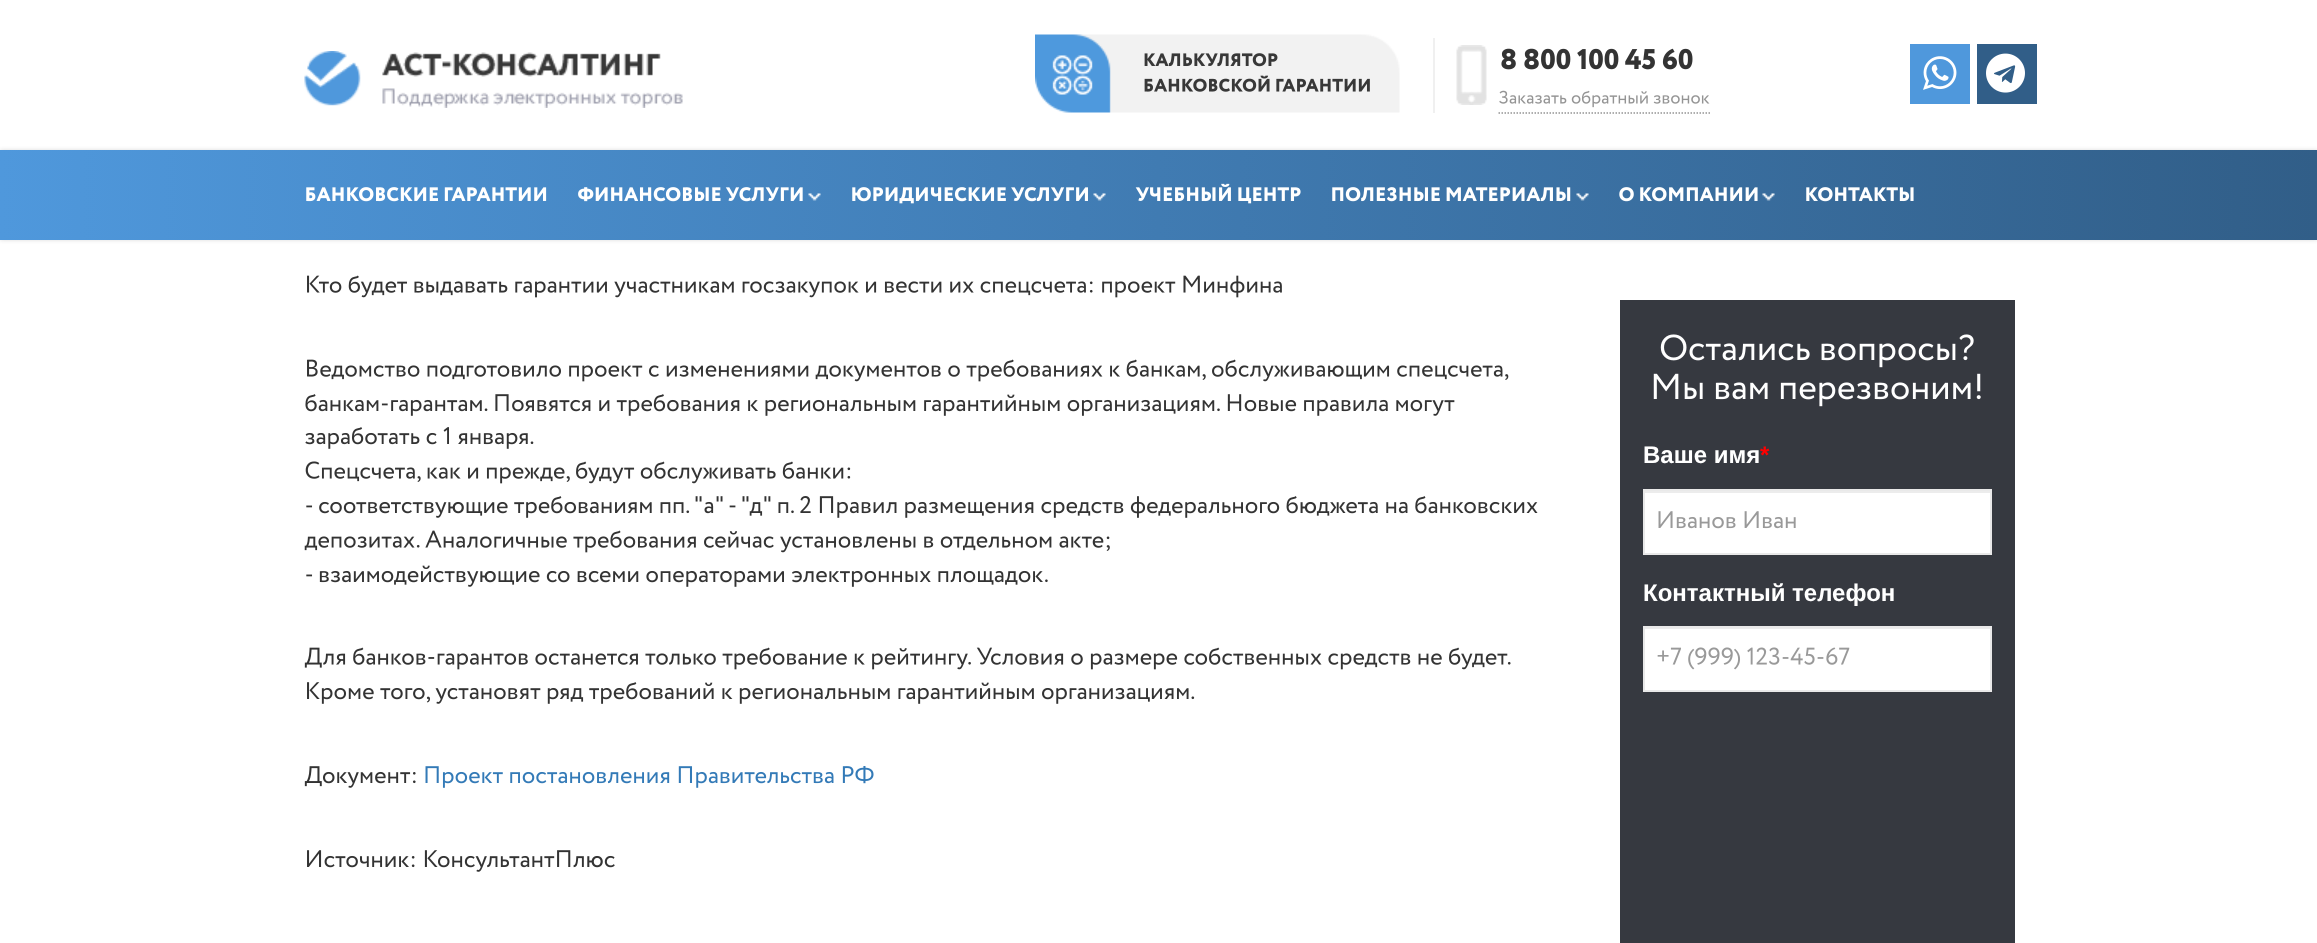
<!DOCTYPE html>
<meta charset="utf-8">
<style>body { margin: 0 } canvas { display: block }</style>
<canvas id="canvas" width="2317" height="943"></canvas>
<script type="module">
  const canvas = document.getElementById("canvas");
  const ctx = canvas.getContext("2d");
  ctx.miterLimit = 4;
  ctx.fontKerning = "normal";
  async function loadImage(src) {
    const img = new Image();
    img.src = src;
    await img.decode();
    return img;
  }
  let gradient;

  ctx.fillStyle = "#ffffff";
  ctx.fillRect(0, 0, 2317, 943);
  ctx.drawImage(await loadImage("img1.png"), 304, 51, 379, 57);
  ctx.drawImage(await loadImage("img2.png"), 1035, 34, 365, 79);
  ctx.drawImage(await loadImage("img3.png"), 1144, 53, 134, 14);
  ctx.drawImage(await loadImage("img4.png"), 1144, 75, 226, 17);
  ctx.fillStyle = "#f0f0f0";
  ctx.fillRect(1433, 38, 2, 75);
  ctx.drawImage(await loadImage("img5.png"), 1456, 45, 31, 60);
  ctx.drawImage(await loadImage("img6.png"), 1501, 48, 192, 22);
  ctx.beginPath();
  ctx.moveTo(1498.5, 113);
  ctx.lineTo(1710, 113);
  ctx.strokeStyle = "#949494";
  ctx.lineWidth = 1.5;
  ctx.setLineDash([1.5, 1.5]);
  ctx.stroke();
  ctx.drawImage(await loadImage("img7.png"), 1499, 90, 211, 18);
  ctx.fillStyle = "#4f98dc";
  ctx.fillRect(1910, 44, 60, 60);
  ctx.drawImage(await loadImage("img8.png"), 1923, 56, 34, 34);
  ctx.fillStyle = "#315e88";
  ctx.fillRect(1977, 44, 60, 60);
  ctx.drawImage(await loadImage("img9.png"), 1986, 53, 39, 40);
  ctx.fillStyle = "rgba(0, 0, 0, 0.14)";
  ctx.filter = "blur(2px)";
  ctx.beginPath();
  ctx.rect(0, 150, 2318, 90);
  ctx.fill();
  ctx.filter = "none";
  gradient = ctx.createLinearGradient(0, 195, 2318, 195);
  gradient.addColorStop(0, "#4f98dc");
  gradient.addColorStop(1, "#315e88");
  ctx.fillStyle = gradient;
  ctx.fillRect(0, 150, 2317, 90);
  ctx.drawImage(await loadImage("img10.png"), 306, 187, 241, 15);
  ctx.drawImage(await loadImage("img11.png"), 578, 187, 225, 15);
  ctx.drawImage(await loadImage("img12.png"), 808, 193, 13, 8);
  ctx.drawImage(await loadImage("img13.png"), 852, 187, 236, 17);
  ctx.drawImage(await loadImage("img14.png"), 1093, 193, 13, 8);
  ctx.drawImage(await loadImage("img15.png"), 1135, 183, 166, 21);
  ctx.drawImage(await loadImage("img16.png"), 1332, 187, 239, 15);
  ctx.drawImage(await loadImage("img17.png"), 1576, 193, 13, 8);
  ctx.drawImage(await loadImage("img18.png"), 1619, 187, 139, 15);
  ctx.drawImage(await loadImage("img19.png"), 1762, 193, 13, 8);
  ctx.drawImage(await loadImage("img20.png"), 1806, 187, 108, 15);
  ctx.drawImage(await loadImage("img21.png"), 307, 275, 975, 23);
  ctx.drawImage(await loadImage("img22.png"), 307, 359, 1202, 23);
  ctx.drawImage(await loadImage("img23.png"), 305, 394, 1150, 22);
  ctx.drawImage(await loadImage("img24.png"), 305, 427, 229, 22);
  ctx.drawImage(await loadImage("img25.png"), 305, 461, 546, 23);
  ctx.drawImage(await loadImage("img26.png"), 306, 496, 1232, 22);
  ctx.drawImage(await loadImage("img27.png"), 304, 530, 806, 23);
  ctx.drawImage(await loadImage("img28.png"), 306, 565, 742, 22);
  ctx.drawImage(await loadImage("img29.png"), 304, 647, 1207, 23);
  ctx.drawImage(await loadImage("img30.png"), 307, 682, 888, 22);
  ctx.drawImage(await loadImage("img31.png"), 304, 766, 112, 22);
  ctx.drawImage(await loadImage("img32.png"), 425, 766, 449, 22);
  ctx.drawImage(await loadImage("img33.png"), 307, 850, 308, 22);
  ctx.fillStyle = "#363940";
  ctx.fillRect(1620, 300, 395, 643);
  ctx.drawImage(await loadImage("img34.png"), 1660, 334, 314, 34);
  ctx.drawImage(await loadImage("img35.png"), 1653, 373, 328, 34);
  ctx.font = "bold 24px Liberation Sans";
  ctx.fillStyle = "#ffffff";
  ctx.fillText("Ваше имя", 1643, 463);
  ctx.fillStyle = "#ff0000";
  ctx.fillText("*", 1760, 463);
  ctx.fillStyle = "#ffffff";
  ctx.fillRect(1645, 493, 345, 60);
  ctx.fillStyle = "#ececec";
  ctx.fillRect(1644, 491, 347, 2);
  ctx.strokeStyle = "#e9e9e9";
  ctx.lineWidth = 2;
  ctx.setLineDash([]);
  ctx.strokeRect(1644, 490, 347, 64);
  ctx.drawImage(await loadImage("img36.png"), 1658, 511, 138, 18);
  ctx.fillStyle = "#ffffff";
  ctx.fillText("Контактный телефон", 1643, 601);
  ctx.fillRect(1645, 629, 345, 61);
  ctx.fillStyle = "#ececec";
  ctx.fillRect(1644, 628, 347, 1);
  ctx.strokeRect(1644, 627, 347, 64);
  ctx.drawImage(await loadImage("img37.png"), 1657, 647, 193, 23);
</script>
